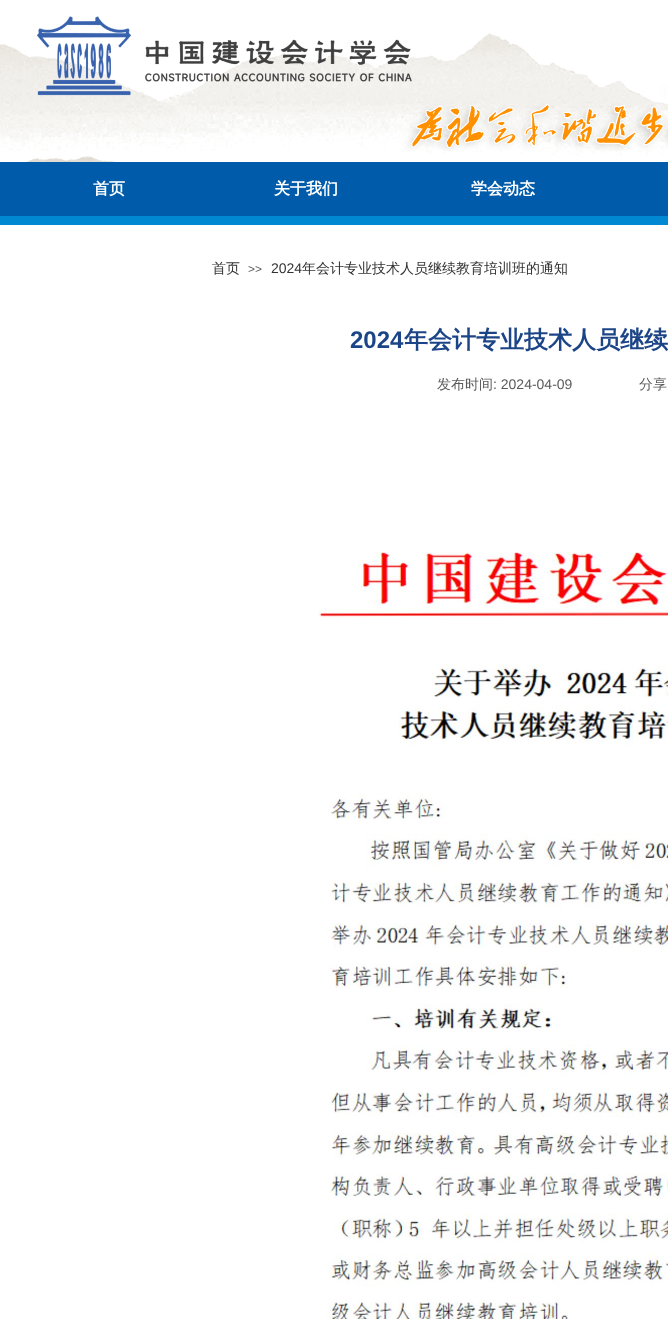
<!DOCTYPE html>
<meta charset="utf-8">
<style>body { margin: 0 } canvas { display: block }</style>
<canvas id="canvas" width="668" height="1319"></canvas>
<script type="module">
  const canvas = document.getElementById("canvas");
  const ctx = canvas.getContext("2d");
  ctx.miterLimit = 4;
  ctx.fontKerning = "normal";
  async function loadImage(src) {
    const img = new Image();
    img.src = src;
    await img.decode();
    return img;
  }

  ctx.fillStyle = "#ffffff";
  ctx.fillRect(0, 0, 668, 1319);
  ctx.drawImage(await loadImage("img1.png"), 0, 33, 668, 129);
  ctx.drawImage(await loadImage("img2.png"), 37, 16, 631, 135);
  ctx.fillStyle = "#005baa";
  ctx.fillRect(0, 162, 668, 54);
  ctx.font = "bold 16px WenQuanYi Zen Hei";
  ctx.fillStyle = "#ffffff";
  ctx.fillText("首页", 93, 194);
  ctx.fillText("关于我们", 274, 194);
  ctx.fillText("学会动态", 471, 194);
  ctx.fillStyle = "#0088d3";
  ctx.fillRect(0, 216, 668, 9);
  ctx.font = "500 14px WenQuanYi Zen Hei";
  ctx.fillStyle = "#333333";
  ctx.fillText("首页", 212, 273);
  ctx.font = "12px Liberation Sans";
  ctx.fillStyle = "#5a5a5a";
  ctx.fillText(">>", 248, 273);
  ctx.font = "14px Liberation Sans";
  ctx.fillStyle = "#333333";
  ctx.fillText("2024", 271, 273);
  ctx.font = "500 14px WenQuanYi Zen Hei";
  ctx.fillText("年会计专业技术人员继续教育培训班的通知", 302, 273);
  ctx.font = "bold 24px Liberation Sans";
  ctx.fillStyle = "#1c4587";
  ctx.fillText("2024", 350, 348);
  ctx.font = "bold 24px WenQuanYi Zen Hei";
  ctx.fillText("年会计专业技术人员继续", 404, 348);
  ctx.font = "500 14px WenQuanYi Zen Hei";
  ctx.fillStyle = "#5a5a5a";
  ctx.fillText("发布时间", 437, 389);
  ctx.font = "14px Liberation Sans";
  ctx.fillText(": 2024-04-09", 493, 389);
  ctx.font = "500 14px WenQuanYi Zen Hei";
  ctx.fillText("分享", 639, 389);
  ctx.drawImage(await loadImage("img3.png"), 318, 551, 350, 768);
</script>
